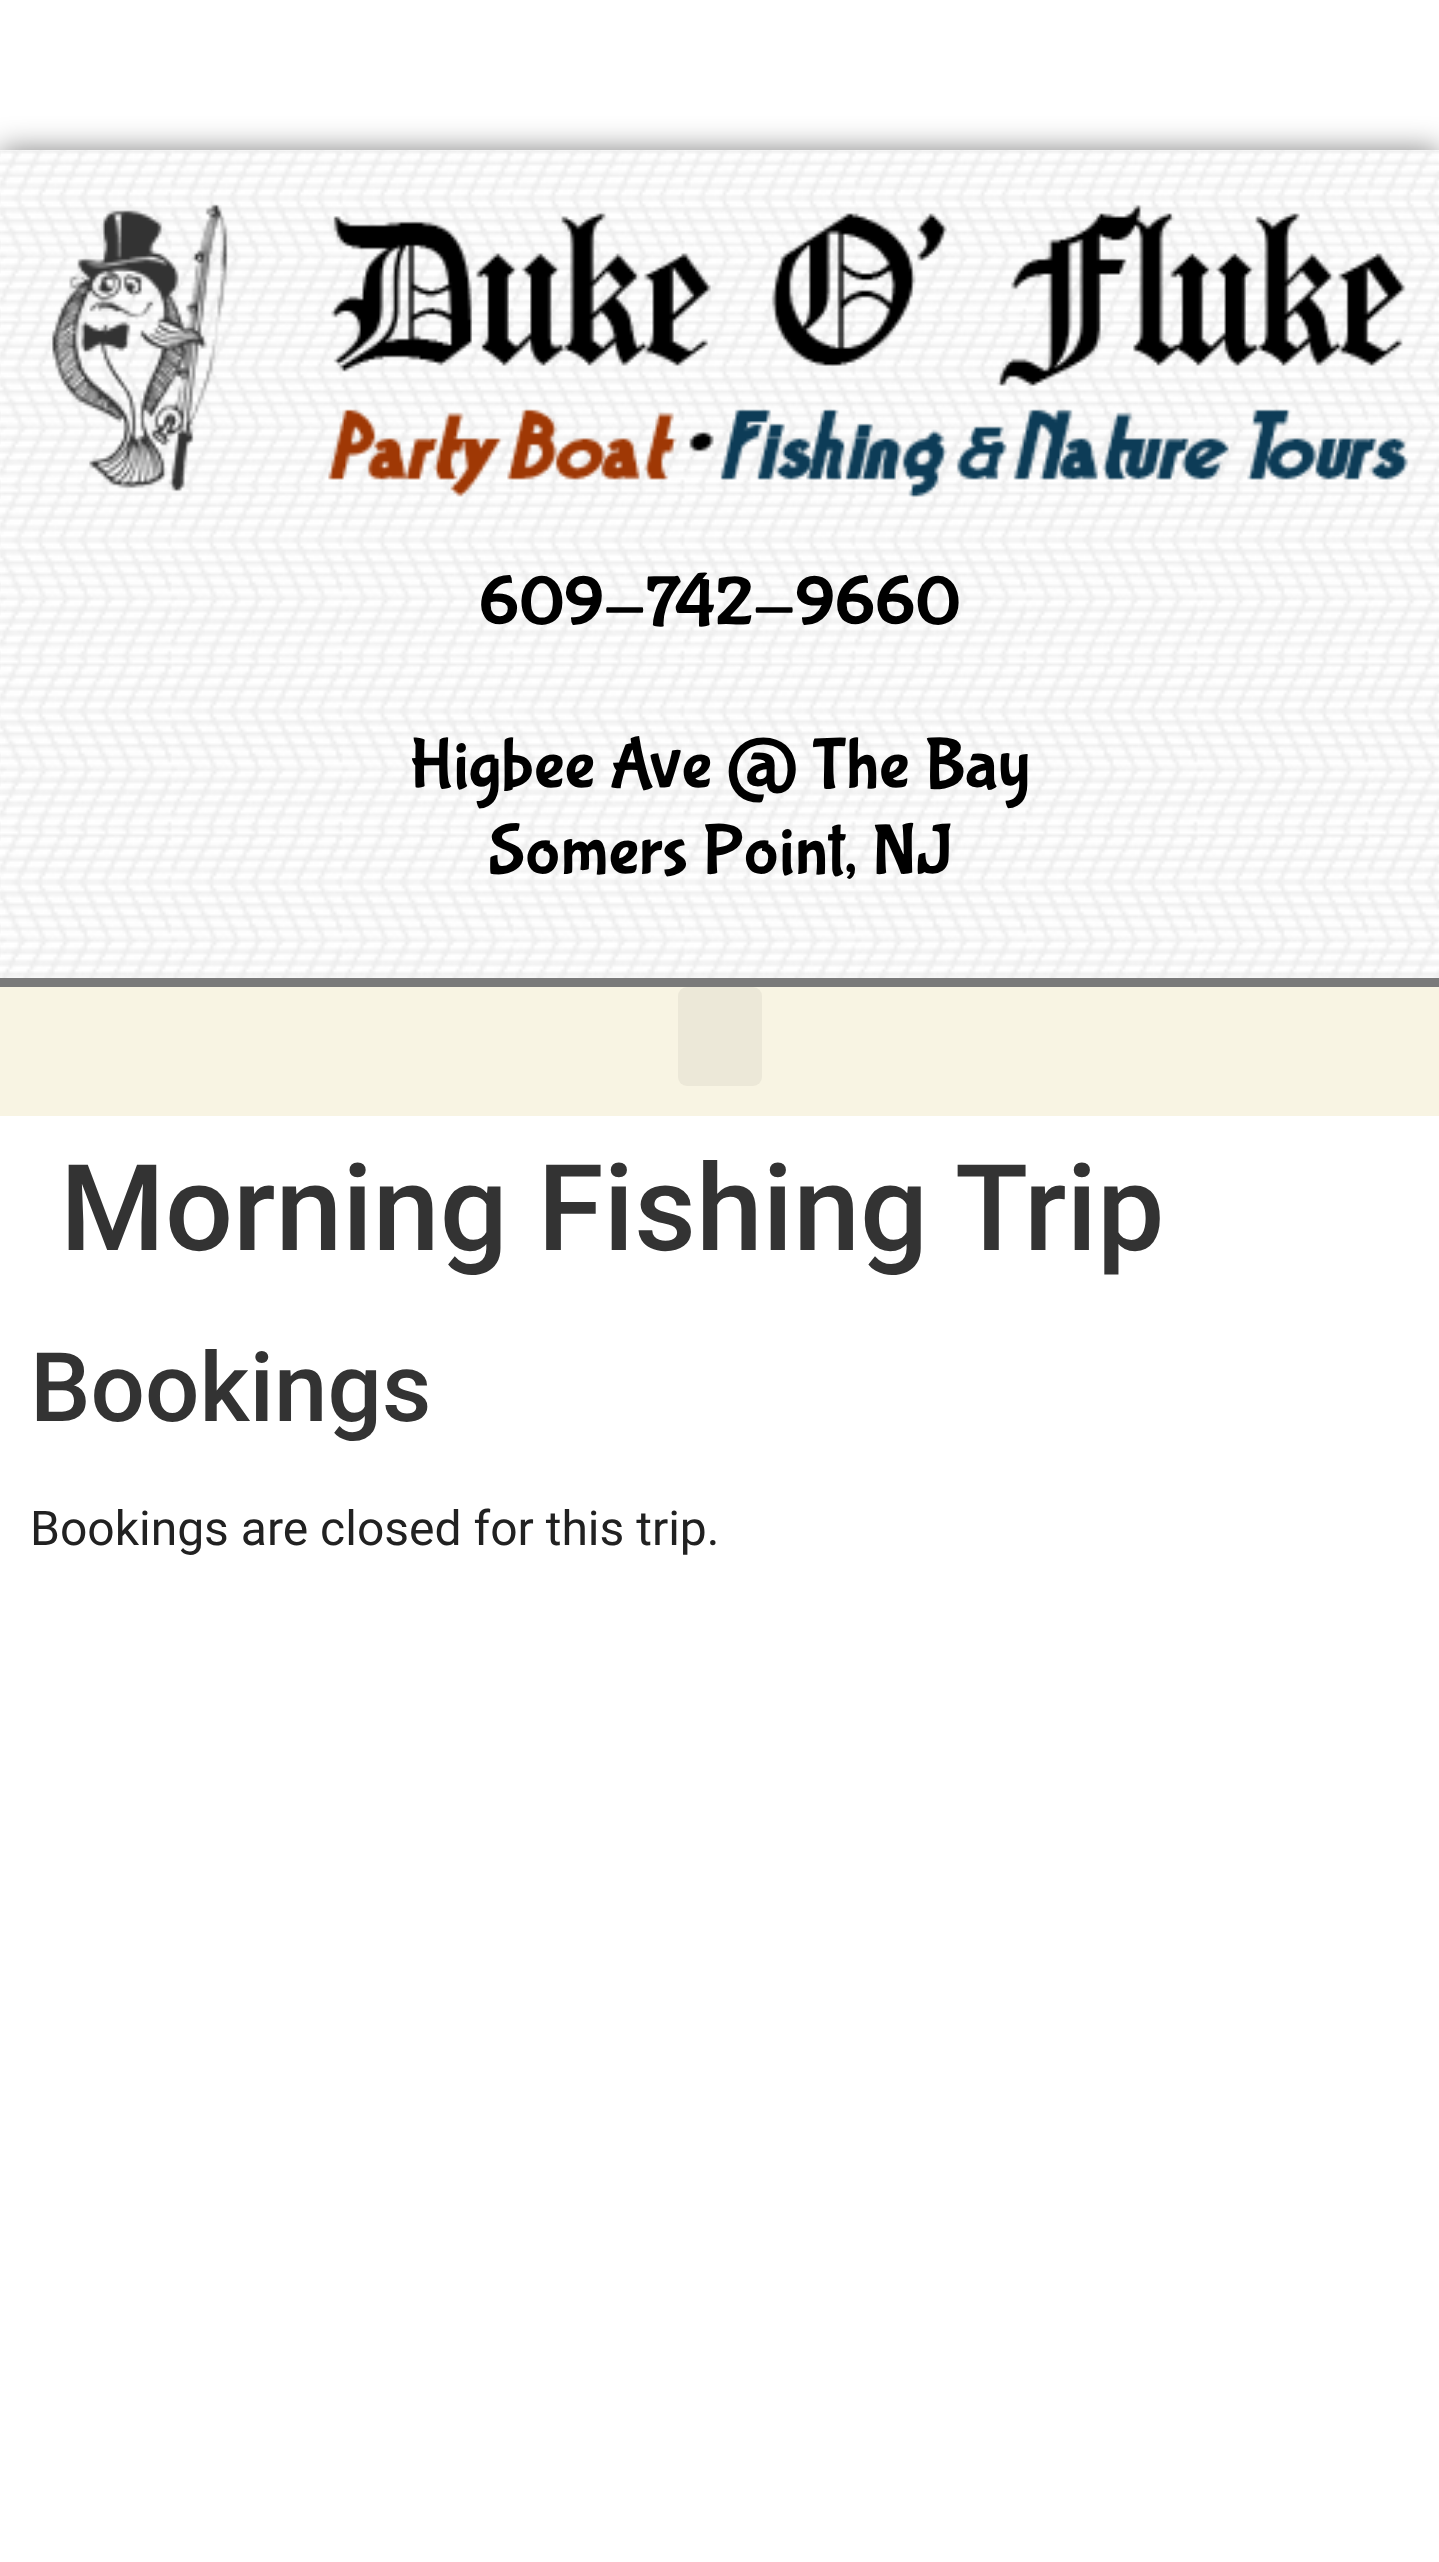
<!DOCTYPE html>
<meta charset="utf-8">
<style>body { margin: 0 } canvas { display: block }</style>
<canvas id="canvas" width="1439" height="2562"></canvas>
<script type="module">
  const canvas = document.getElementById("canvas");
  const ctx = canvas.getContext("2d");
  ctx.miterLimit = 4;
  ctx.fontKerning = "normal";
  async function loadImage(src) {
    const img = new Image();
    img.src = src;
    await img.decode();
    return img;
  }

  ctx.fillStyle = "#ffffff";
  ctx.fillRect(0, 0, 1439, 2562);
  ctx.fillStyle = "rgba(0, 0, 0, 0.5)";
  ctx.filter = "blur(15px)";
  ctx.beginPath();
  ctx.rect(0, 150, 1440, 837);
  ctx.fill();
  ctx.filter = "none";
  ctx.drawImage(await loadImage("img1.png"), 0, 150, 1439, 828);
  ctx.fillStyle = "#7a7a7a";
  ctx.fillRect(0, 978, 1439, 9);
  ctx.drawImage(await loadImage("img2.png"), 52, 204, 1357, 293);
  ctx.font = "72px Bubblegum Sans";
  ctx.fillStyle = "#000000";
  ctx.fillText("609-742-9660", 479, 624);
  ctx.fillText("Higbee Ave @ The Bay", 409, 786);
  ctx.fillText("Somers Point, NJ", 488, 872);
  ctx.fillStyle = "#f8f4e3";
  ctx.fillRect(0, 987, 1439, 129);
  ctx.fillStyle = "#ece8d8";
  ctx.beginPath();
  ctx.roundRect(678, 987, 84, 99, 9);
  ctx.fill();
  ctx.font = "500 120px Roboto";
  ctx.fillStyle = "#333333";
  ctx.fillText("Morning Fishing Trip", 60, 1250);
  ctx.font = "500 96px Roboto";
  ctx.fillText("Bookings", 30, 1421);
  ctx.font = "48px Roboto";
  ctx.fillStyle = "#212121";
  ctx.fillText("Bookings are closed for this trip.", 30, 1545);
</script>
